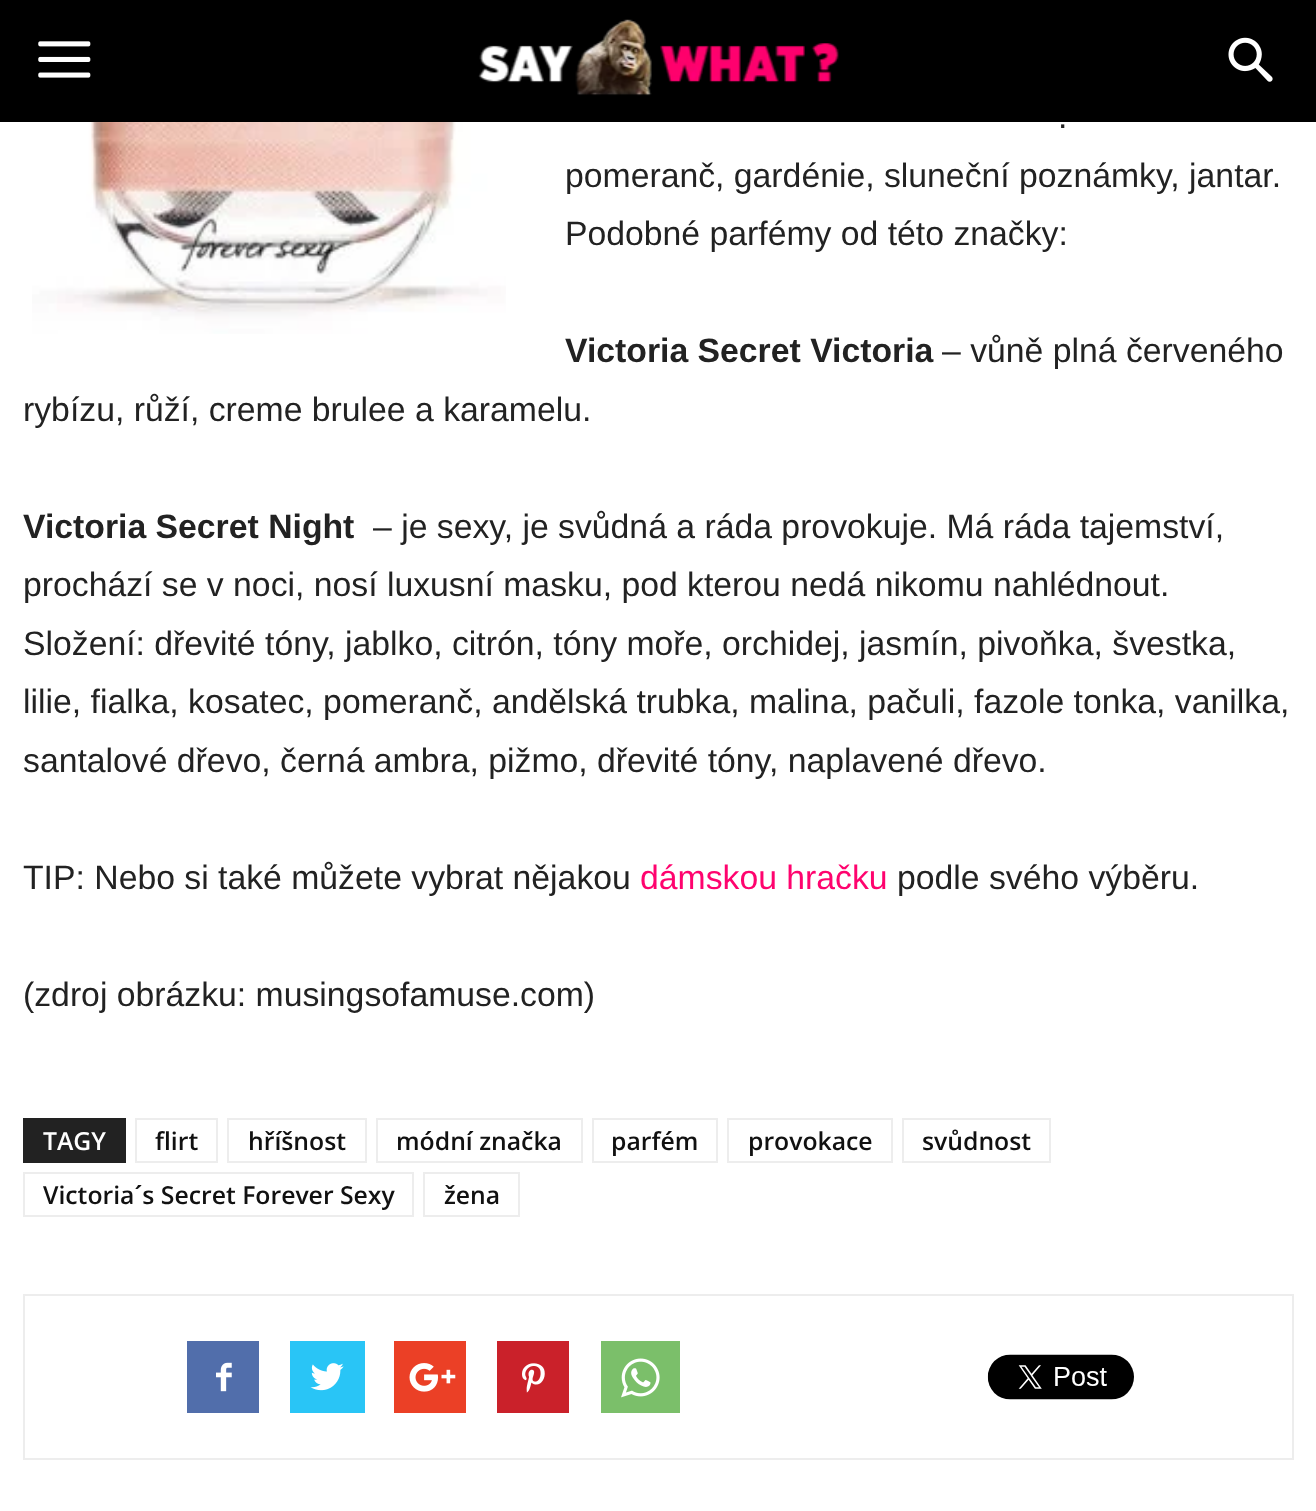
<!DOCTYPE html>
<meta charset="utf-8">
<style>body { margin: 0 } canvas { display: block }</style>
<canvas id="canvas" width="1316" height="1511"></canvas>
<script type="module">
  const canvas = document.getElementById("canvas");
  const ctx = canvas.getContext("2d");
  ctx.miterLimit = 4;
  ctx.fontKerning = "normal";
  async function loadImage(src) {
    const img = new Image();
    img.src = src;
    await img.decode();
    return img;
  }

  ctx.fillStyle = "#ffffff";
  ctx.fillRect(0, 0, 1316, 1511);
  ctx.fillStyle = "#000000";
  ctx.fillRect(0, 0, 1316, 122);
  ctx.drawImage(await loadImage("img1.png"), 38, 41, 53, 37);
  ctx.drawImage(await loadImage("img2.png"), 478, 19, 361, 77);
  ctx.drawImage(await loadImage("img3.png"), 1228, 37, 45, 45);
  ctx.drawImage(await loadImage("img4.png"), 32, 122, 474, 212);
  ctx.font = "33.75px Liberation Sans";
  ctx.fillStyle = "#222222";
  ctx.fillText(".", 1058, 128);
  ctx.fillText("pomeranč, gardénie, sluneční poznámky, jantar.", 565, 187);
  ctx.fillText("Podobné parfémy od této značky:", 565, 245);
  ctx.font = "bold 33.75px Liberation Sans";
  ctx.fillText("Victoria Secret Victoria", 565, 362);
  ctx.font = "33.75px Liberation Sans";
  ctx.fillText("– vůně plná červeného", 942, 362);
  ctx.fillText("rybízu, růží, creme brulee a karamelu.", 23, 421);
  ctx.font = "bold 33.75px Liberation Sans";
  ctx.fillText("Victoria Secret Night", 23, 538);
  ctx.font = "33.75px Liberation Sans";
  ctx.fillText("– je sexy, je svůdná a ráda provokuje. Má ráda tajemství,", 373, 538);
  ctx.fillText("prochází se v noci, nosí luxusní masku, pod kterou nedá nikomu nahlédnout.", 23, 596);
  ctx.fillText("Složení: dřevité tóny, jablko, citrón, tóny moře, orchidej, jasmín, pivoňka, švestka,", 23, 655);
  ctx.fillText("lilie, fialka, kosatec, pomeranč, andělská trubka, malina, pačuli, fazole tonka, vanilka,", 23, 713);
  ctx.fillText("santalové dřevo, černá ambra, pižmo, dřevité tóny, naplavené dřevo.", 23, 772);
  ctx.fillText("TIP: Nebo si také můžete vybrat nějakou", 23, 889);
  ctx.fillStyle = "#ff036e";
  ctx.fillText("dámskou hračku", 640, 889);
  ctx.fillStyle = "#222222";
  ctx.fillText("podle svého výběru.", 897, 889);
  ctx.fillText("(zdroj obrázku: musingsofamuse.com)", 23, 1006);
  ctx.fillRect(23, 1118, 103, 45);
  ctx.font = "600 24.75px Open Sans";
  ctx.fillStyle = "#ffffff";
  ctx.fillText("TAGY", 43, 1150);
  ctx.strokeStyle = "#ededed";
  ctx.lineWidth = 2;
  ctx.strokeRect(136, 1119, 81, 43);
  ctx.fillStyle = "#111111";
  ctx.fillText("flirt", 155, 1150);
  ctx.strokeRect(228, 1119, 138, 43);
  ctx.fillText("hříšnost", 248, 1150);
  ctx.strokeRect(377, 1119, 205, 43);
  ctx.fillText("módní značka", 396, 1150);
  ctx.strokeRect(593, 1119, 124, 43);
  ctx.fillText("parfém", 611, 1150);
  ctx.strokeRect(728, 1119, 164, 43);
  ctx.fillText("provokace", 748, 1150);
  ctx.strokeRect(903, 1119, 147, 43);
  ctx.fillText("svůdnost", 922, 1150);
  ctx.strokeRect(24, 1173, 389, 43);
  ctx.fillText("Victoria´s Secret Forever Sexy", 43, 1204);
  ctx.strokeRect(424, 1173, 95, 43);
  ctx.fillText("žena", 444, 1204);
  ctx.strokeRect(24, 1295, 1269, 164);
  ctx.fillStyle = "#516eab";
  ctx.fillRect(187, 1341, 72, 72);
  ctx.drawImage(await loadImage("img5.png"), 216, 1362, 16, 30);
  ctx.fillStyle = "#29c5f6";
  ctx.fillRect(290, 1341, 75, 72);
  ctx.drawImage(await loadImage("img6.png"), 310, 1363, 34, 28);
  ctx.fillStyle = "#eb4026";
  ctx.fillRect(394, 1341, 72, 72);
  ctx.drawImage(await loadImage("img7.png"), 409, 1363, 47, 29);
  ctx.fillStyle = "#ca212a";
  ctx.fillRect(497, 1341, 72, 72);
  ctx.drawImage(await loadImage("img8.png"), 522, 1363, 23, 30);
  ctx.fillStyle = "#7bbf6a";
  ctx.fillRect(601, 1341, 79, 72);
  ctx.drawImage(await loadImage("img9.png"), 621, 1358, 39, 40);
  ctx.drawImage(await loadImage("img10.png"), 987, 1354, 147, 46);
</script>
